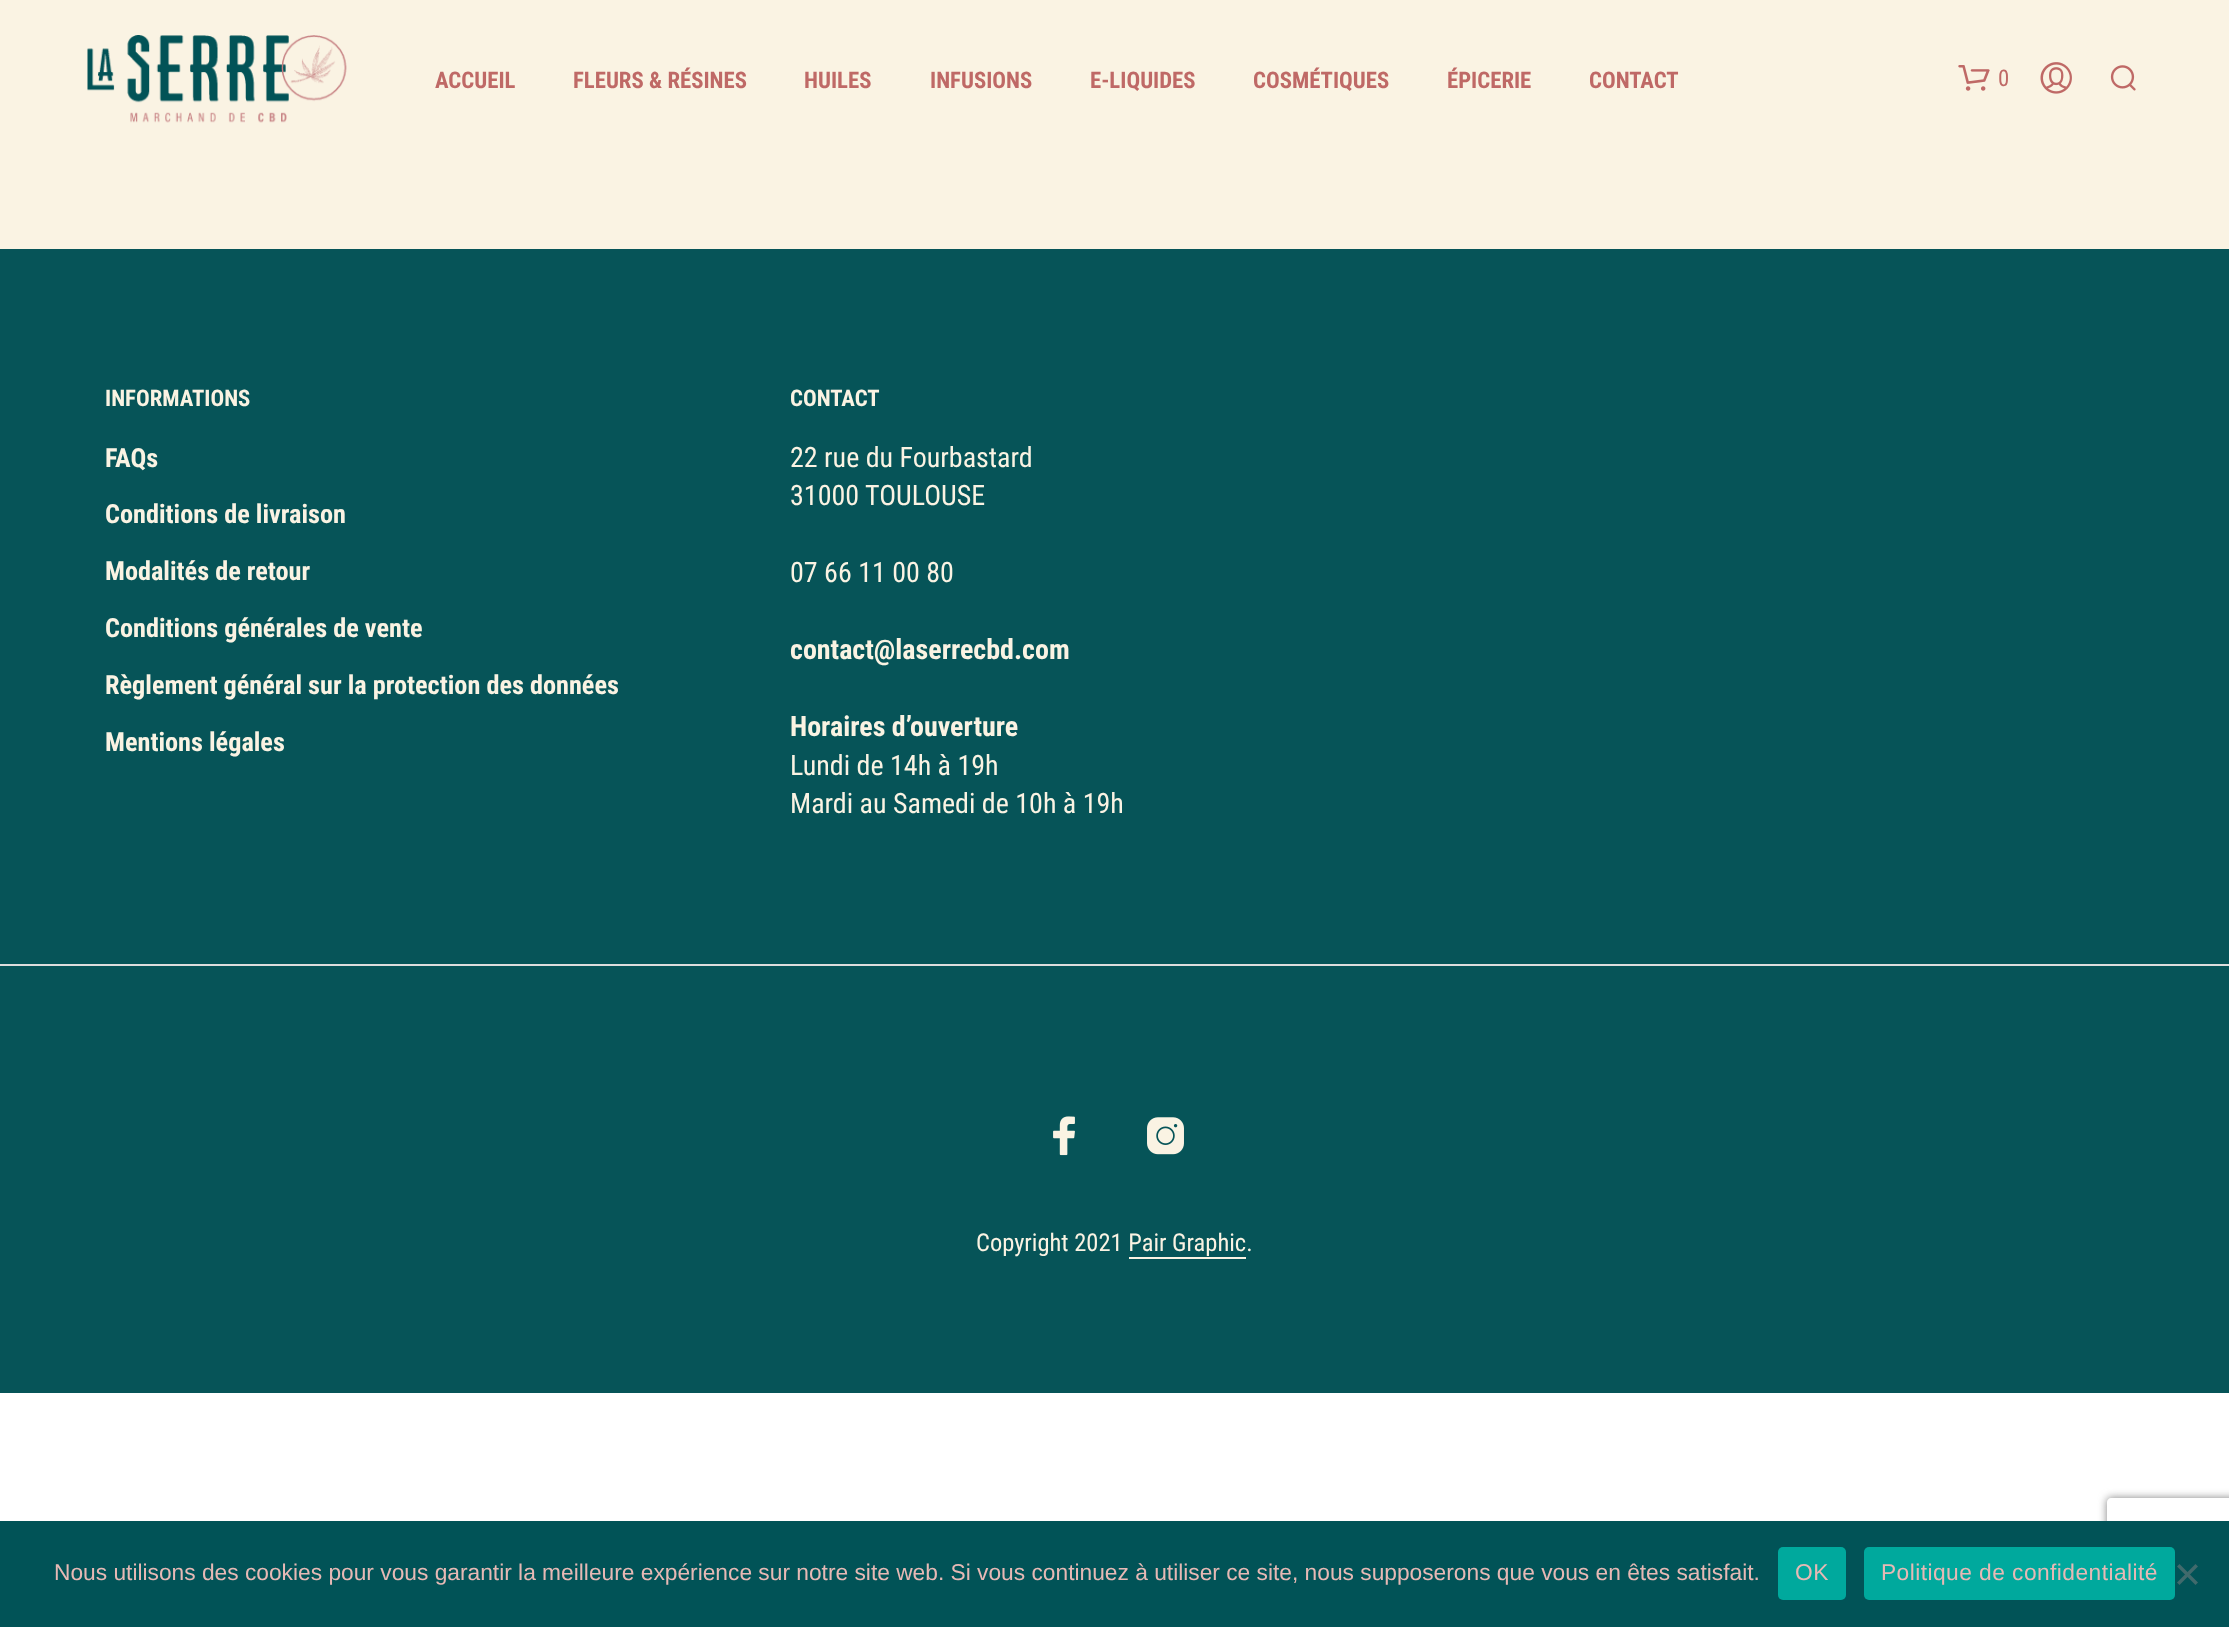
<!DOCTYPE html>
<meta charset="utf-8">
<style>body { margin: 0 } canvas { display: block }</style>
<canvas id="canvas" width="2229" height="1627"></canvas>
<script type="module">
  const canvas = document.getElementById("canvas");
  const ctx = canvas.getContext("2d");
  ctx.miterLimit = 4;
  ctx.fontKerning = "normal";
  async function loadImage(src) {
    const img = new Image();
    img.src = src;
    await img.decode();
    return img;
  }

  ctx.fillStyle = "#ffffff";
  ctx.fillRect(0, 0, 2229, 1627);
  ctx.fillStyle = "#faf3e3";
  ctx.fillRect(0, 0, 2229, 249);
  ctx.drawImage(await loadImage("img1.png"), 87, 35, 260, 88);
  ctx.font = "bold 22.75px Roboto Condensed";
  ctx.fillStyle = "#bf6966";
  ctx.fillText("ACCUEIL", 435, 88);
  ctx.fillText("FLEURS & RÉSINES", 573, 88);
  ctx.fillText("HUILES", 804, 88);
  ctx.fillText("INFUSIONS", 930, 88);
  ctx.fillText("E-LIQUIDES", 1090, 88);
  ctx.fillText("COSMÉTIQUES", 1253, 88);
  ctx.fillText("ÉPICERIE", 1447, 88);
  ctx.fillText("CONTACT", 1589, 88);
  ctx.drawImage(await loadImage("img2.png"), 1958, 65, 32, 26);
  ctx.font = "22.75px Roboto Condensed";
  ctx.fillText("0", 1998, 86);
  ctx.drawImage(await loadImage("img3.png"), 2040, 62, 32, 32);
  ctx.drawImage(await loadImage("img4.png"), 2110, 65, 26, 26);
  ctx.fillStyle = "#065458";
  ctx.fillRect(0, 249, 2229, 1144);
  ctx.fillStyle = "#dddddd";
  ctx.fillRect(0, 964, 2229, 2);
  ctx.font = "bold 22.75px Roboto Condensed";
  ctx.fillStyle = "#faf3e3";
  ctx.fillText("INFORMATIONS", 105, 406);
  ctx.font = "bold 26.25px Roboto Condensed";
  ctx.fillText("FAQs", 105, 467);
  ctx.fillText("Conditions de livraison", 105, 523);
  ctx.fillText("Modalités de retour", 105, 580);
  ctx.fillText("Conditions générales de vente", 105, 637);
  ctx.fillText("Règlement général sur la protection des données", 105, 694);
  ctx.fillText("Mentions légales", 105, 751);
  ctx.font = "bold 22.75px Roboto Condensed";
  ctx.fillText("CONTACT", 790, 406);
  ctx.font = "28px Roboto Condensed";
  ctx.fillText("22 rue du Fourbastard", 790, 467);
  ctx.fillText("31000 TOULOUSE", 790, 505);
  ctx.fillText("07 66 11 00 80", 790, 582);
  ctx.font = "bold 28px Roboto Condensed";
  ctx.fillText("contact@laserrecbd.com", 790, 659);
  ctx.fillText("Horaires d’ouverture", 790, 736);
  ctx.font = "28px Roboto Condensed";
  ctx.fillText("Lundi de 14h à 19h", 790, 775);
  ctx.fillText("Mardi au Samedi de 10h à 19h", 790, 813);
  ctx.drawImage(await loadImage("img5.png"), 1053, 1116, 22, 40);
  ctx.drawImage(await loadImage("img6.png"), 1147, 1117, 37, 38);
  ctx.font = "24.5px Roboto Condensed";
  ctx.fillText("Copyright 2021 Pair Graphic.", 976, 1251);
  ctx.fillRect(1129, 1257, 117, 2);
  ctx.save();
  ctx.beginPath();
  ctx.moveTo(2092, 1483);
  ctx.lineTo(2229, 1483);
  ctx.lineTo(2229, 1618);
  ctx.lineTo(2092, 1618);
  ctx.closePath();
  ctx.moveTo(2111, 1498);
  ctx.lineTo(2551, 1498);
  ctx.bezierCurveTo(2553, 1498, 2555, 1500, 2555, 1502);
  ctx.lineTo(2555, 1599);
  ctx.bezierCurveTo(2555, 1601, 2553, 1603, 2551, 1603);
  ctx.lineTo(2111, 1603);
  ctx.bezierCurveTo(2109, 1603, 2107, 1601, 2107, 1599);
  ctx.lineTo(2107, 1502);
  ctx.bezierCurveTo(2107, 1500, 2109, 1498, 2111, 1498);
  ctx.closePath();
  ctx.clip("evenodd");
  ctx.fillStyle = "#808080";
  ctx.filter = "blur(4.5px)";
  ctx.beginPath();
  ctx.roundRect(2107, 1498, 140, 105, 4);
  ctx.fill();
  ctx.filter = "none";
  ctx.restore();
  ctx.fillStyle = "#015357";
  ctx.fillRect(0, 1521, 2229, 106);
  ctx.font = "22.75px Liberation Sans";
  ctx.fillStyle = "#e6b9b5";
  ctx.fillText("Nous utilisons des cookies pour vous garantir la meilleure expérience sur notre site web. Si vous continuez à utiliser ce site, nous supposerons que vous en êtes satisfait.", 54, 1580);
  ctx.fillStyle = "#00a99d";
  ctx.beginPath();
  ctx.roundRect(1778, 1547, 68, 53, 5);
  ctx.fill();
  ctx.letterSpacing = "0.45px";
  ctx.fillStyle = "#e6b9b5";
  ctx.fillText("OK", 1795, 1580);
  ctx.fillStyle = "#00a99d";
  ctx.beginPath();
  ctx.roundRect(1864, 1547, 311, 53, 5);
  ctx.fill();
  ctx.fillStyle = "#e6b9b5";
  ctx.fillText("Politique de confidentialité", 1881, 1580);
  ctx.fillStyle = "#416a6c";
  ctx.beginPath();
  ctx.moveTo(2195.5, 1564);
  ctx.lineTo(2198, 1566.5);
  ctx.lineTo(2179.5, 1585);
  ctx.lineTo(2177, 1582.5);
  ctx.closePath();
  ctx.fill();
  ctx.beginPath();
  ctx.moveTo(2177, 1566.5);
  ctx.lineTo(2179.5, 1564);
  ctx.lineTo(2198, 1582.5);
  ctx.lineTo(2195.5, 1585);
  ctx.closePath();
  ctx.fill();
</script>
